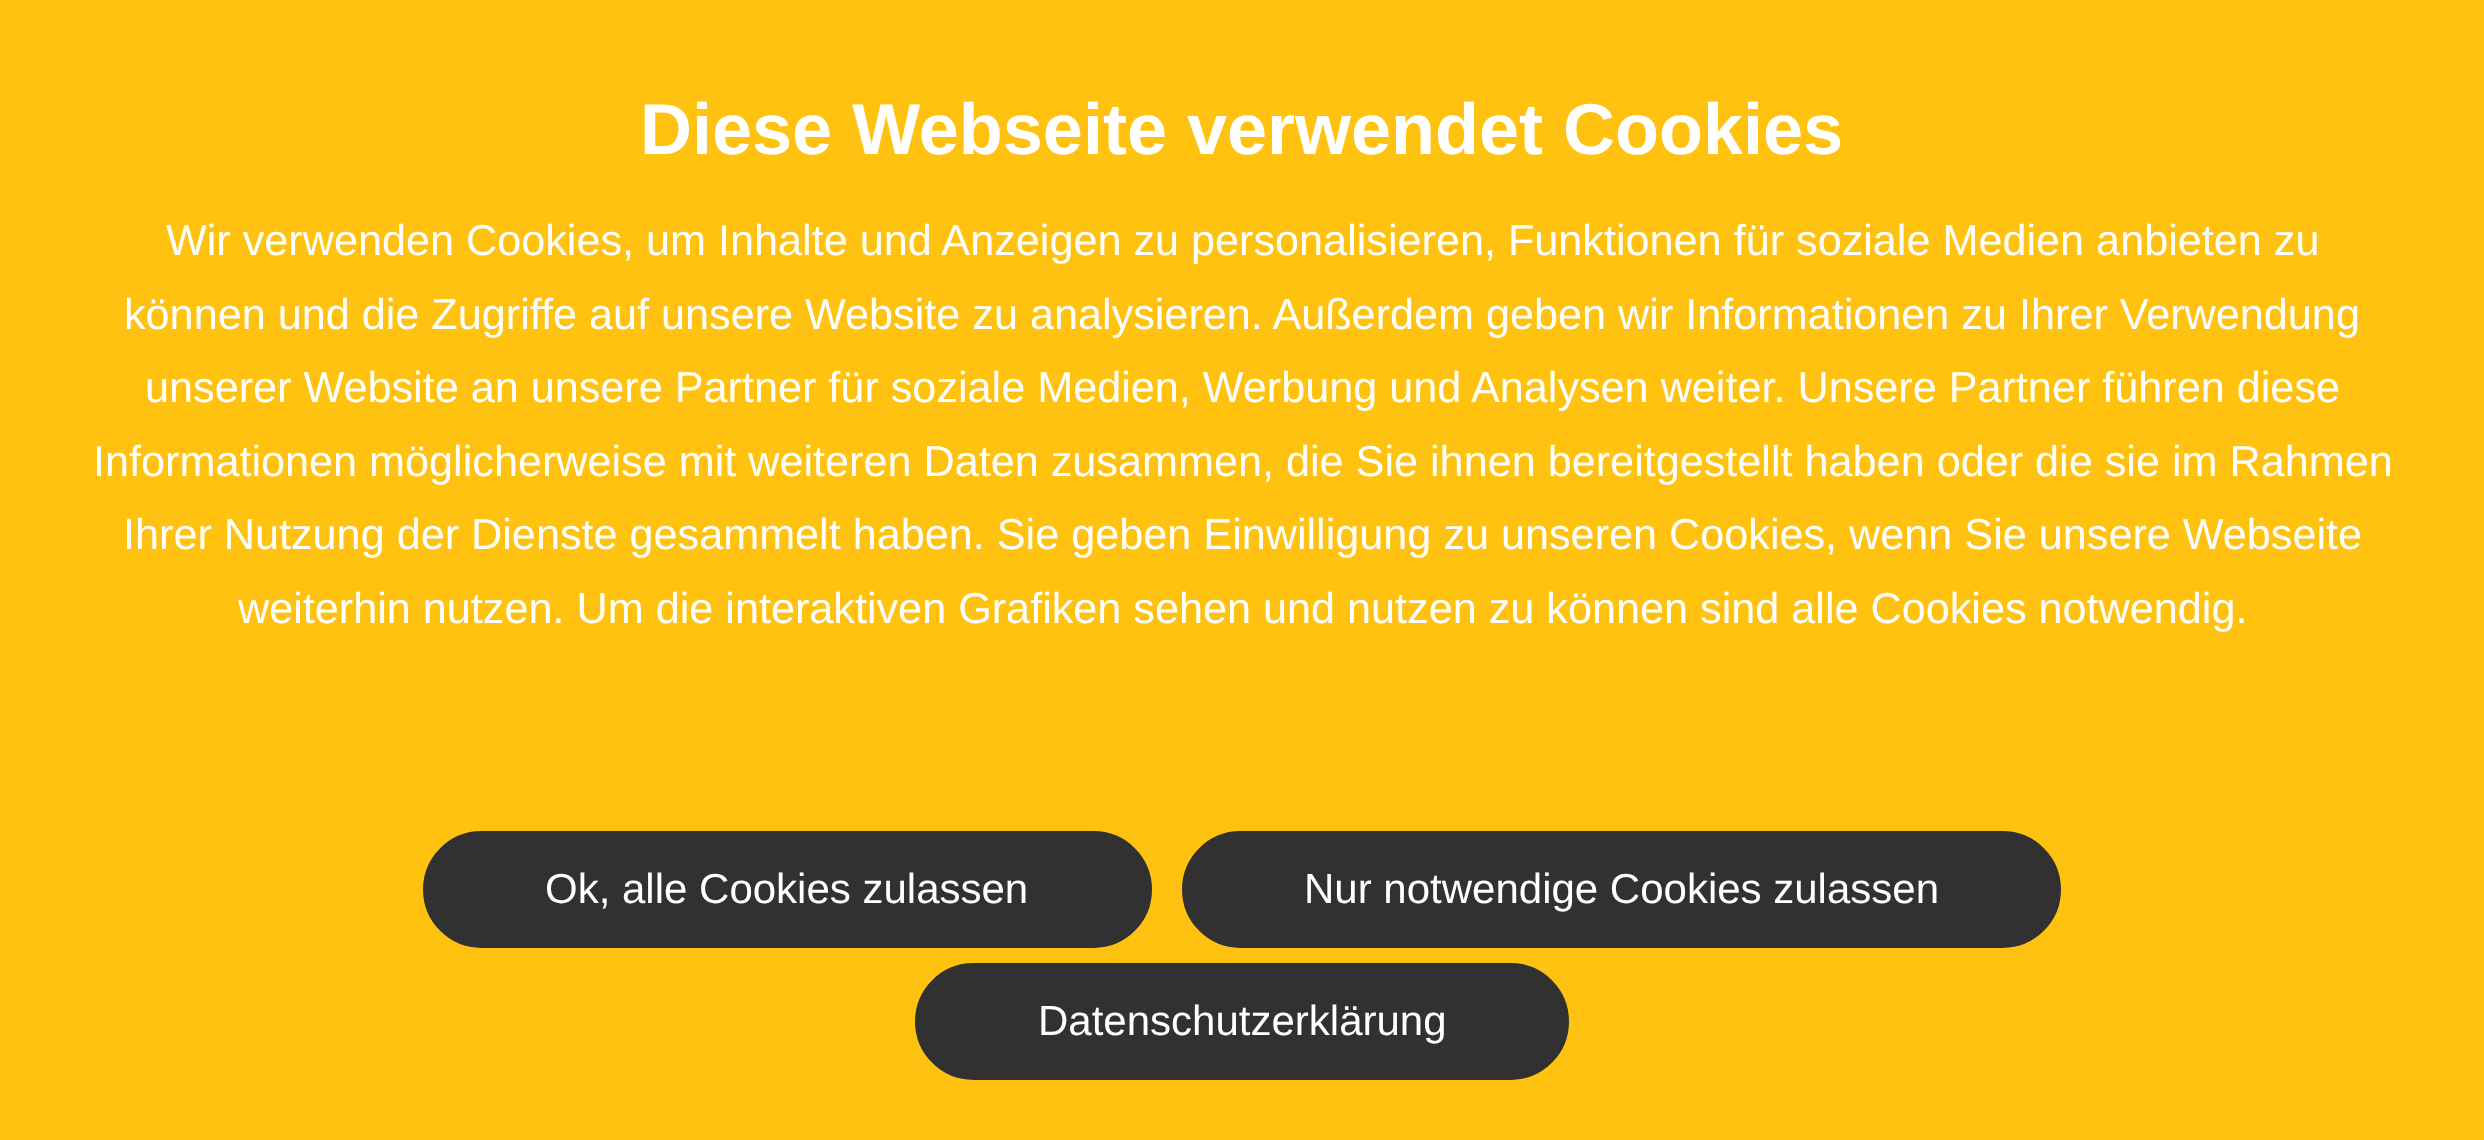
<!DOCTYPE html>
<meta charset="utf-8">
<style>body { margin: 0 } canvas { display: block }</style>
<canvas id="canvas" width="2484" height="1140"></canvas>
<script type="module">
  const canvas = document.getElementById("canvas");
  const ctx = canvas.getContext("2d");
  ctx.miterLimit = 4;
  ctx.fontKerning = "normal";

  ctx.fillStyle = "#ffc210";
  ctx.fillRect(0, 0, 2484, 1140);
  ctx.font = "bold 72px Liberation Sans";
  ctx.fillStyle = "#ffffff";
  ctx.fillText("Diese Webseite verwendet Cookies", 640, 154);
  ctx.font = "43.2px Liberation Sans";
  ctx.fillText("Wir verwenden Cookies, um Inhalte und Anzeigen zu personalisieren, Funktionen für soziale Medien anbieten zu", 166, 255);
  ctx.fillText("können und die Zugriffe auf unsere Website zu analysieren. Außerdem geben wir Informationen zu Ihrer Verwendung", 124, 329);
  ctx.fillText("unserer Website an unsere Partner für soziale Medien, Werbung und Analysen weiter. Unsere Partner führen diese", 145, 402);
  ctx.fillText("Informationen möglicherweise mit weiteren Daten zusammen, die Sie ihnen bereitgestellt haben oder die sie im Rahmen", 93, 476);
  ctx.fillText("Ihrer Nutzung der Dienste gesammelt haben. Sie geben Einwilligung zu unseren Cookies, wenn Sie unsere Webseite", 123, 549);
  ctx.fillText("weiterhin nutzen. Um die interaktiven Grafiken sehen und nutzen zu können sind alle Cookies notwendig.", 238, 623);
  ctx.fillStyle = "#313131";
  ctx.beginPath();
  ctx.roundRect(424.5, 832.5, 726, 114, 57);
  ctx.fill();
  ctx.strokeStyle = "#313131";
  ctx.lineWidth = 3;
  ctx.stroke();
  ctx.font = "42px Liberation Sans";
  ctx.fillStyle = "#ffffff";
  ctx.fillText("Ok, alle Cookies zulassen", 545, 903);
  ctx.fillStyle = "#313131";
  ctx.beginPath();
  ctx.roundRect(1183.5, 832.5, 876, 114, 57);
  ctx.fill();
  ctx.stroke();
  ctx.fillStyle = "#ffffff";
  ctx.fillText("Nur notwendige Cookies zulassen", 1304, 903);
  ctx.fillStyle = "#313131";
  ctx.beginPath();
  ctx.roundRect(916.5, 964.5, 651, 114, 57);
  ctx.fill();
  ctx.stroke();
  ctx.fillStyle = "#ffffff";
  ctx.fillText("Datenschutzerklärung", 1038, 1035);
</script>
